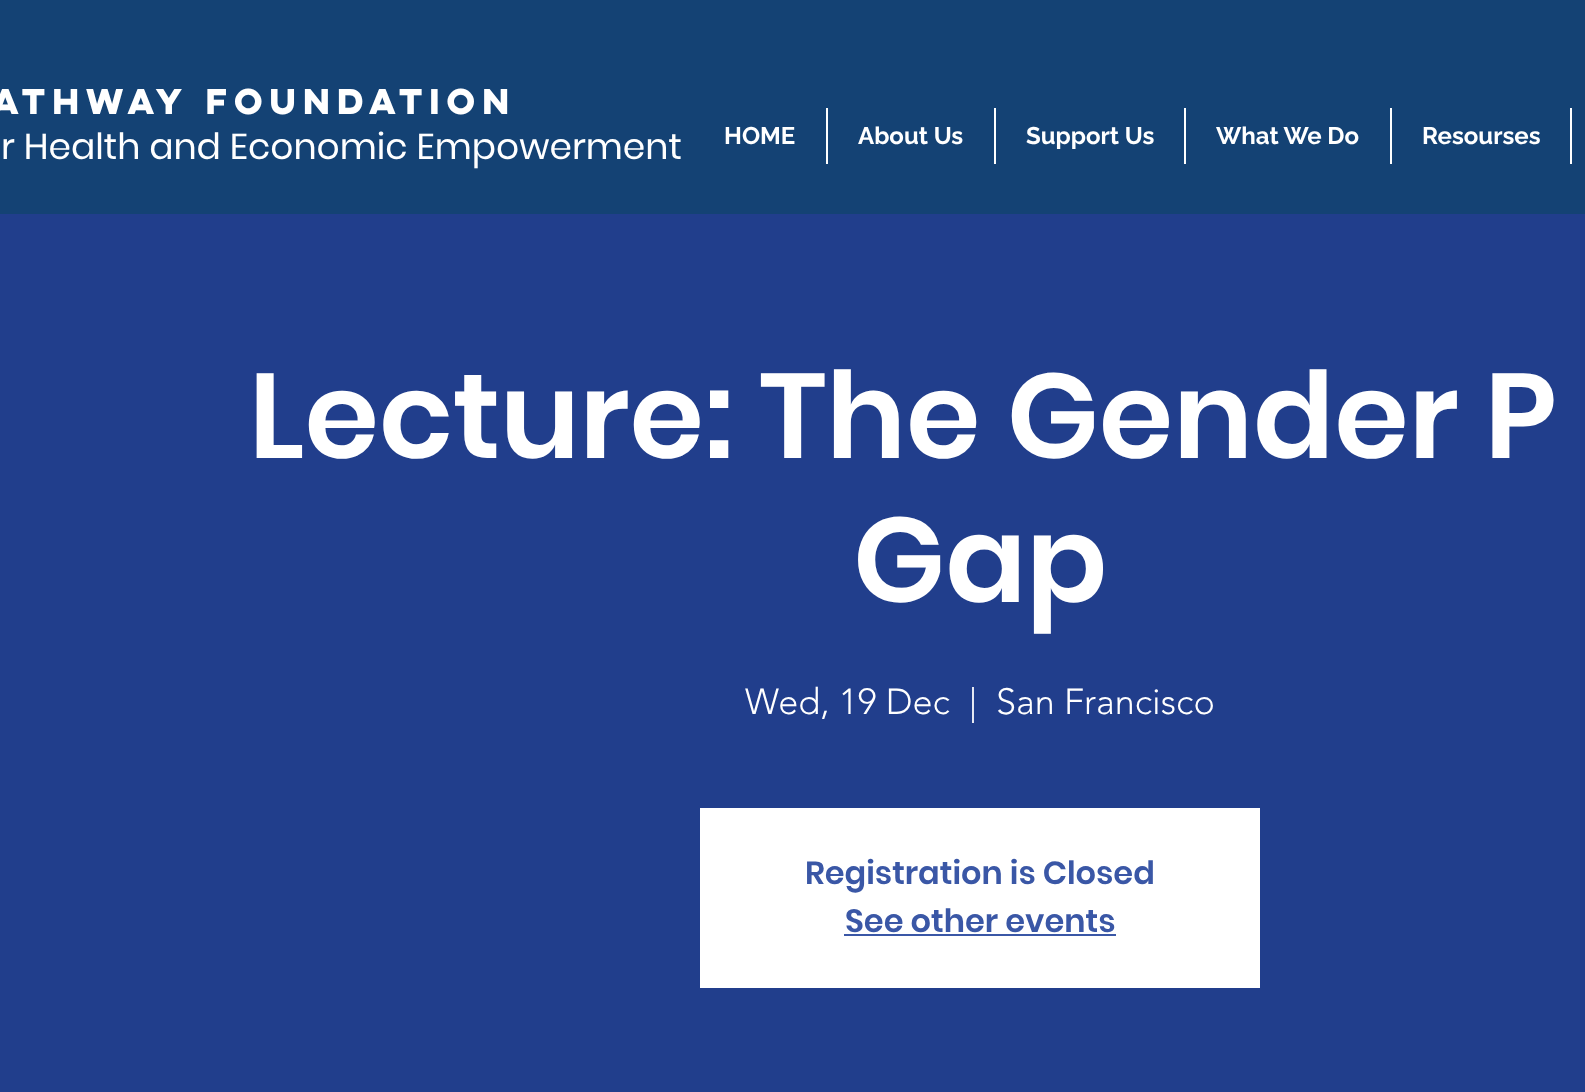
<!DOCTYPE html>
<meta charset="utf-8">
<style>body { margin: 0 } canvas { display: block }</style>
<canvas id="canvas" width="1585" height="1092"></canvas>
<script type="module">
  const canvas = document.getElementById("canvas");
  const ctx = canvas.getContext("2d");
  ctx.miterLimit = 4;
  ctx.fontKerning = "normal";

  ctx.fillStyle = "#213e8c";
  ctx.fillRect(0, 0, 1585, 1092);
  ctx.fillStyle = "#144274";
  ctx.fillRect(0, 0, 1585, 214);
  ctx.font = "bold 32px 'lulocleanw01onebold'";
  ctx.fillStyle = "#ffffff";
  ctx.fillText("athway Foundation", -8, 114);
  ctx.font = "36px Poppins";
  ctx.fillText("r Health and Economic Empowerment", 1, 159);
  ctx.font = "bold 24px Raleway";
  ctx.fillText("HOME", 724, 144);
  ctx.fillRect(826, 108, 2, 56);
  ctx.fillText("About Us", 858, 144);
  ctx.fillRect(994, 108, 2, 56);
  ctx.fillText("Support Us", 1026, 144);
  ctx.fillRect(1184, 108, 2, 56);
  ctx.fillText("What We Do", 1216, 144);
  ctx.fillRect(1390, 108, 2, 56);
  ctx.fillText("Resourses", 1422, 144);
  ctx.fillRect(1570, 108, 2, 56);
  ctx.font = "600 120px Poppins";
  ctx.fillText("Lecture: The Gender P", 249, 458);
  ctx.fillText("Gap", 853, 602);
  ctx.font = "300 36px 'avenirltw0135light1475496'";
  ctx.fillText("Wed, 19 Dec", 745, 714);
  ctx.fillText("|", 969, 714);
  ctx.fillText("San Francisco", 996, 714);
  ctx.fillRect(700, 808, 560, 180);
  ctx.font = "600 32px Poppins";
  ctx.fillStyle = "#3a57a6";
  ctx.fillText("Registration is Closed", 805, 884);
  ctx.fillText("See other events", 845, 932);
  ctx.fillRect(844, 934, 272, 2);
</script>
